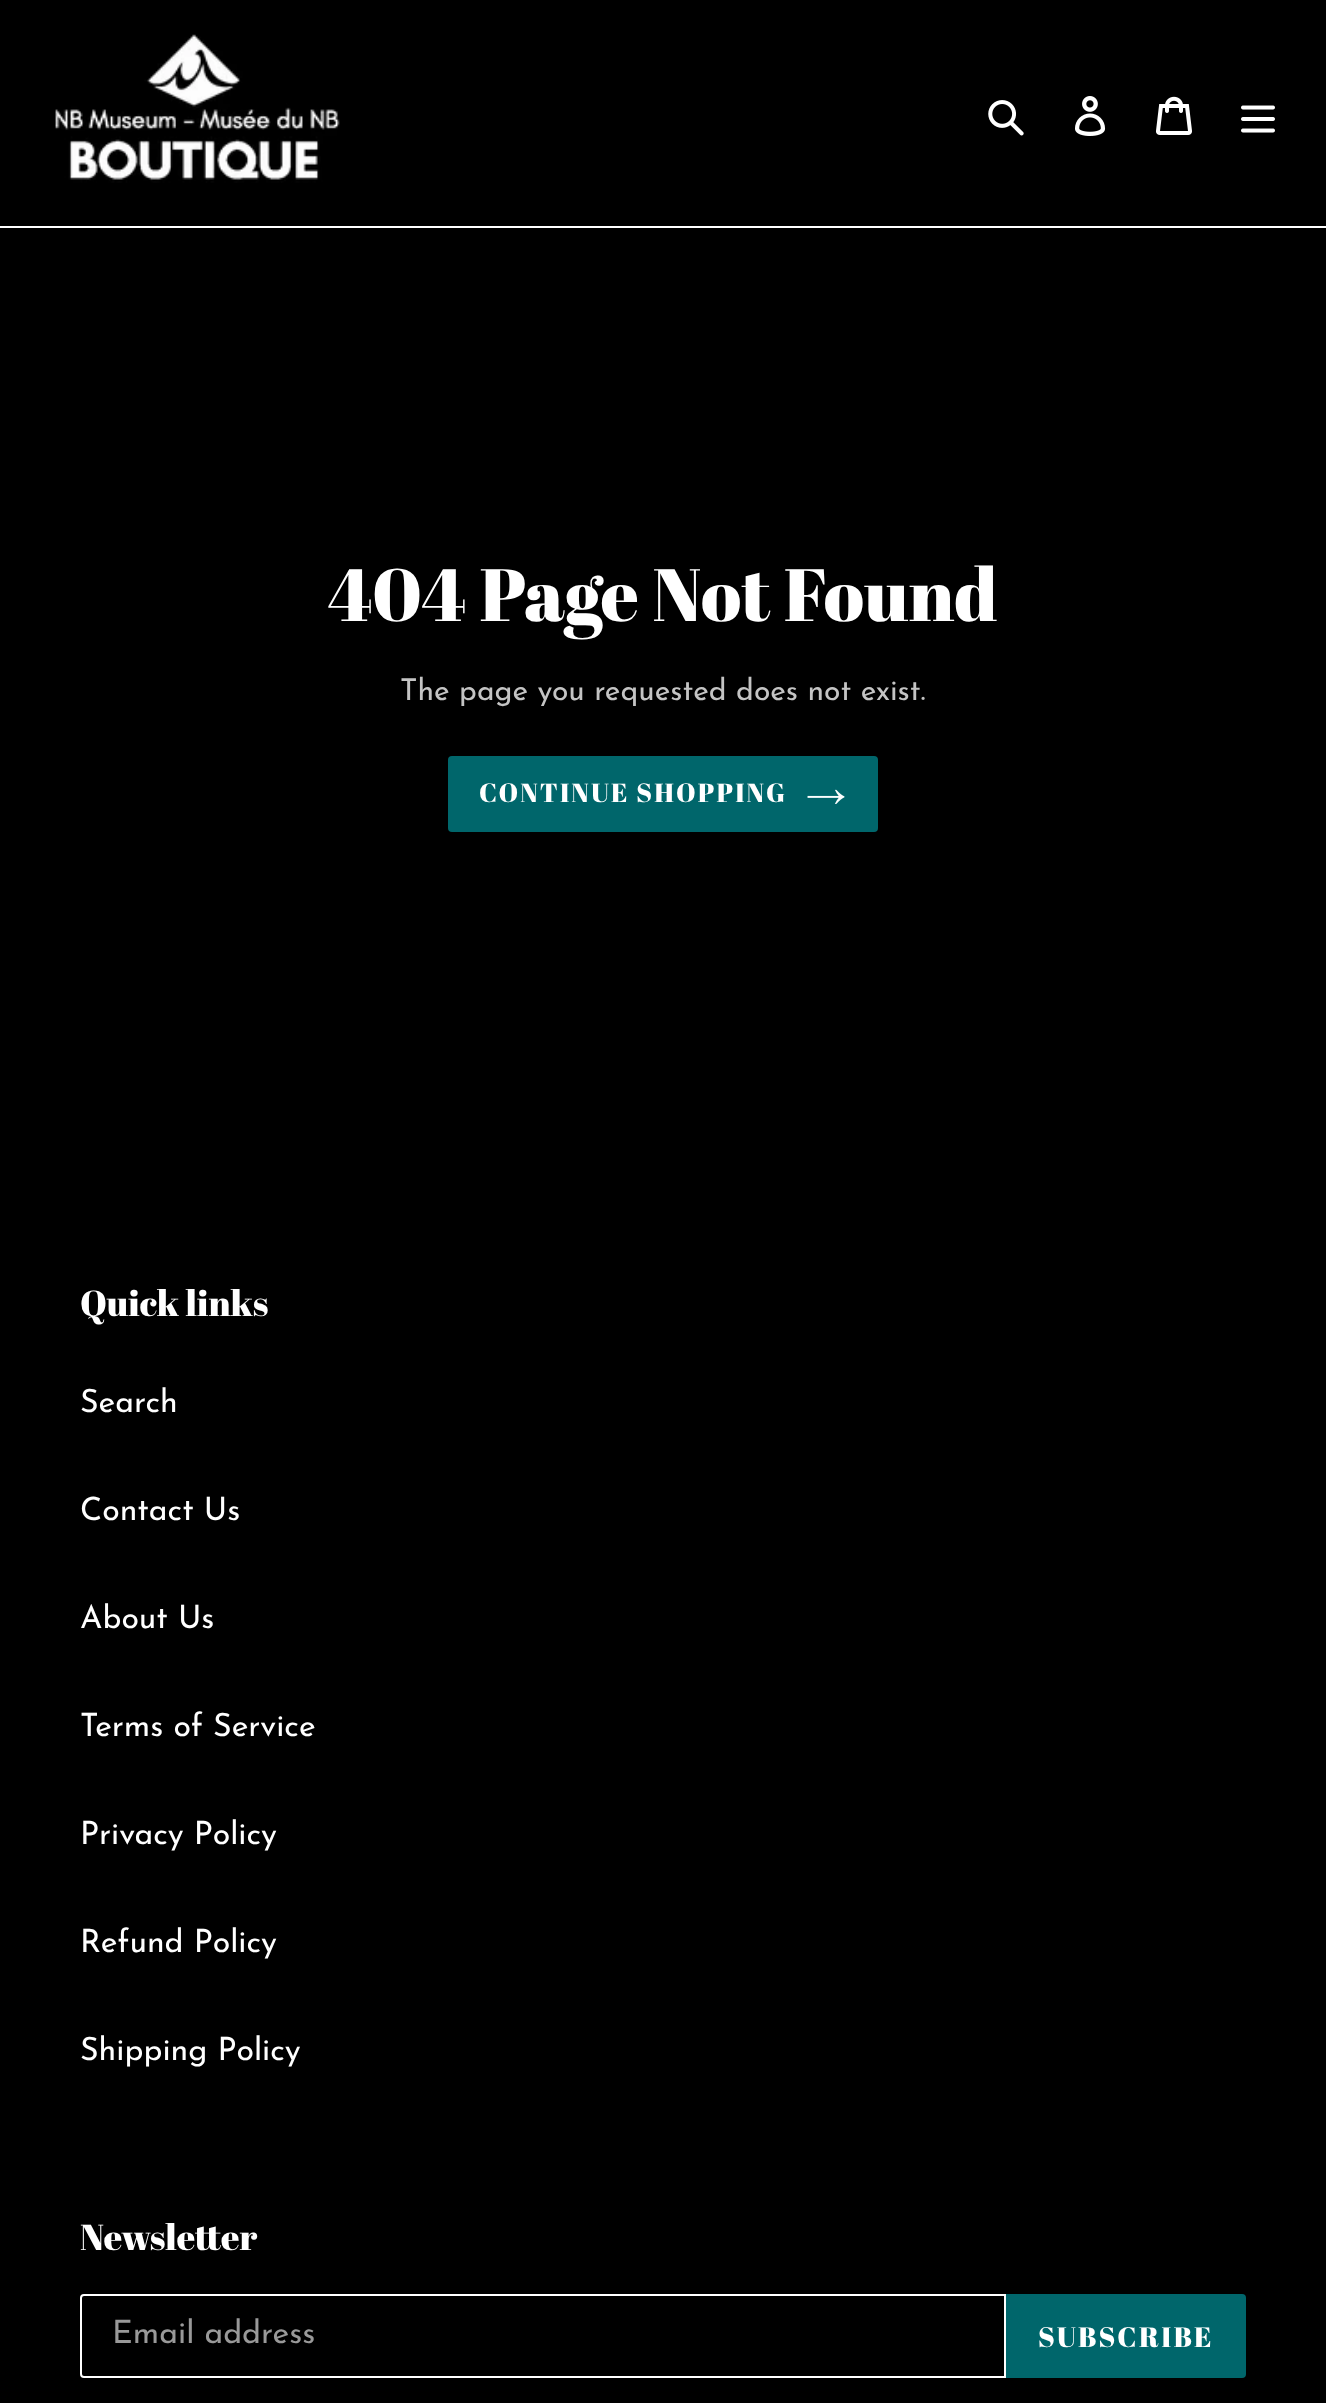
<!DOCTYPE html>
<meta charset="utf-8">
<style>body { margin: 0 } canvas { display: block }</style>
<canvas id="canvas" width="1326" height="2403"></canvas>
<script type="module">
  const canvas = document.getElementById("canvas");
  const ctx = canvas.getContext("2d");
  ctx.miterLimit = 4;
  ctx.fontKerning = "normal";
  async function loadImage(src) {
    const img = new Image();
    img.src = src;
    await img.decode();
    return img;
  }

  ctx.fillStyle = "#000000";
  ctx.fillRect(0, 0, 1326, 2403);
  ctx.fillStyle = "#ffffff";
  ctx.fillRect(0, 226, 1326, 2);
  ctx.drawImage(await loadImage("img1.png"), 55, 34, 285, 149);
  ctx.drawImage(await loadImage("img2.png"), 988, 100, 36, 36);
  ctx.drawImage(await loadImage("img3.png"), 1075, 96, 31, 40);
  ctx.drawImage(await loadImage("img4.png"), 1156, 96, 36, 39);
  ctx.drawImage(await loadImage("img5.png"), 1241, 105, 34, 28);
  ctx.font = "74px Abril Fatface";
  ctx.fillText("404 Page Not Found", 328, 621);
  ctx.font = "30px Josefin Sans";
  ctx.fillStyle = "#c4c4c4";
  ctx.fillText("The page you requested does not exist.", 400, 700);
  ctx.fillStyle = "#00666b";
  ctx.beginPath();
  ctx.roundRect(448, 756, 430, 76, 4);
  ctx.fill();
  ctx.letterSpacing = "2.1px";
  ctx.font = "26.25px Abril Fatface";
  ctx.fillStyle = "#ffffff";
  ctx.fillText("CONTINUE SHOPPING", 479, 802);
  ctx.drawImage(await loadImage("img6.png"), 807, 789, 38, 15);
  ctx.letterSpacing = "0px";
  ctx.font = "36px Abril Fatface";
  ctx.fillText("Quick links", 80, 1316);
  ctx.font = "32px Josefin Sans";
  ctx.fillText("Search", 80, 1412);
  ctx.fillText("Contact Us", 80, 1520);
  ctx.fillText("About Us", 80, 1628);
  ctx.fillText("Terms of Service", 80, 1736);
  ctx.fillText("Privacy Policy", 80, 1844);
  ctx.fillText("Refund Policy", 80, 1952);
  ctx.fillText("Shipping Policy", 80, 2060);
  ctx.font = "36px Abril Fatface";
  ctx.fillText("Newsletter", 80, 2250);
  ctx.beginPath();
  ctx.roundRect(81, 2295, 924, 82, [3, 0, 0, 3]);
  ctx.strokeStyle = "#ffffff";
  ctx.lineWidth = 2;
  ctx.stroke();
  ctx.font = "32px Josefin Sans";
  ctx.fillStyle = "#999999";
  ctx.fillText("Email address", 112, 2343);
  ctx.fillStyle = "#00666b";
  ctx.beginPath();
  ctx.roundRect(1006, 2294, 240, 84, [0, 4, 4, 0]);
  ctx.fill();
  ctx.letterSpacing = "2.25px";
  ctx.font = "28px Abril Fatface";
  ctx.fillStyle = "#ffffff";
  ctx.fillText("SUBSCRIBE", 1038, 2347);
</script>
